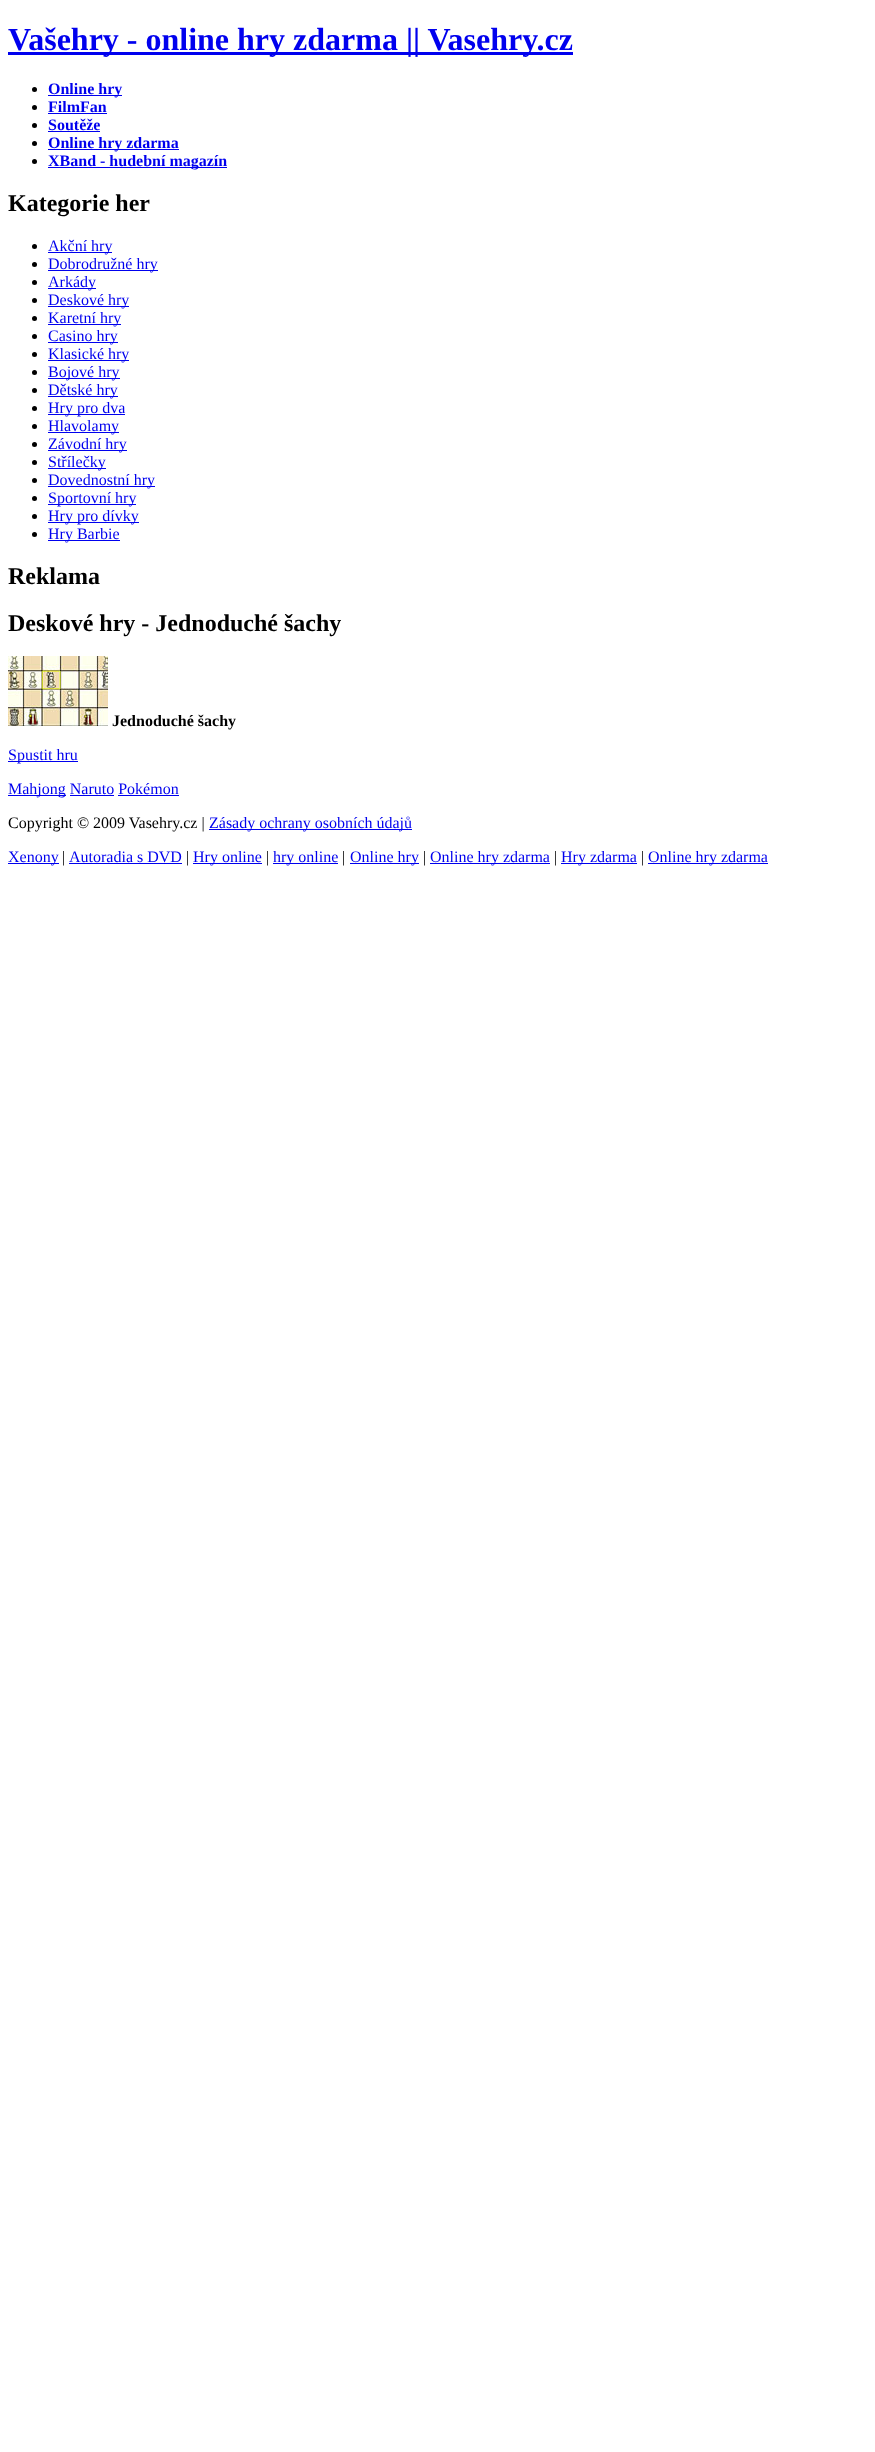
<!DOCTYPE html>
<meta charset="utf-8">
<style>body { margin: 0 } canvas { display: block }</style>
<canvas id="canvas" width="875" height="2452"></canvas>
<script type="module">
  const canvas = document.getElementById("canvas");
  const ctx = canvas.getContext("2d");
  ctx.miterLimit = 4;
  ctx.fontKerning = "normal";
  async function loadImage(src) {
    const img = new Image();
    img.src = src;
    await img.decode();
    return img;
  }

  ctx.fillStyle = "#ffffff";
  ctx.fillRect(0, 0, 875, 2452);
  ctx.fillStyle = "#0000ee";
  ctx.fillRect(8, 52, 565, 3);
  ctx.font = "bold 32px Liberation Serif";
  ctx.fillText("Vašehry - online hry zdarma || Vasehry.cz", 8, 50);
  ctx.fillStyle = "#000000";
  ctx.beginPath();
  ctx.arc(34.5, 89.5, 2.5, 0, Math.PI * 2);
  ctx.fill();
  ctx.fillStyle = "#0000ee";
  ctx.fillRect(48, 95, 74, 1);
  ctx.font = "bold 16px Liberation Serif";
  ctx.fillText("Online hry", 48, 94);
  ctx.fillStyle = "#000000";
  ctx.beginPath();
  ctx.arc(34.5, 107.5, 2.5, 0, Math.PI * 2);
  ctx.fill();
  ctx.fillStyle = "#0000ee";
  ctx.fillText("FilmFan", 48, 112);
  ctx.fillRect(48, 113, 59, 1);
  ctx.fillStyle = "#000000";
  ctx.beginPath();
  ctx.arc(34.5, 125.5, 2.5, 0, Math.PI * 2);
  ctx.fill();
  ctx.fillStyle = "#0000ee";
  ctx.fillText("Soutěže", 48, 130);
  ctx.fillRect(48, 131, 52, 1);
  ctx.fillStyle = "#000000";
  ctx.beginPath();
  ctx.arc(34.5, 143.5, 2.5, 0, Math.PI * 2);
  ctx.fill();
  ctx.fillStyle = "#0000ee";
  ctx.fillRect(48, 149, 131, 1);
  ctx.fillText("Online hry zdarma", 48, 148);
  ctx.fillStyle = "#000000";
  ctx.beginPath();
  ctx.arc(34.5, 161.5, 2.5, 0, Math.PI * 2);
  ctx.fill();
  ctx.fillStyle = "#0000ee";
  ctx.fillRect(48, 167, 179, 1);
  ctx.fillText("XBand - hudební magazín", 48, 166);
  ctx.font = "bold 24px Liberation Serif";
  ctx.fillStyle = "#000000";
  ctx.fillText("Kategorie her", 8, 211);
  ctx.beginPath();
  ctx.arc(34.5, 246.5, 2.5, 0, Math.PI * 2);
  ctx.fill();
  ctx.fillStyle = "#0000ee";
  ctx.fillRect(48, 252, 64, 1);
  ctx.font = "16px Liberation Serif";
  ctx.fillText("Akční hry", 48, 251);
  ctx.fillStyle = "#000000";
  ctx.beginPath();
  ctx.arc(34.5, 264.5, 2.5, 0, Math.PI * 2);
  ctx.fill();
  ctx.fillStyle = "#0000ee";
  ctx.fillRect(48, 270, 110, 1);
  ctx.fillText("Dobrodružné hry", 48, 269);
  ctx.fillStyle = "#000000";
  ctx.beginPath();
  ctx.arc(34.5, 282.5, 2.5, 0, Math.PI * 2);
  ctx.fill();
  ctx.fillStyle = "#0000ee";
  ctx.fillRect(48, 288, 48, 1);
  ctx.fillText("Arkády", 48, 287);
  ctx.fillStyle = "#000000";
  ctx.beginPath();
  ctx.arc(34.5, 300.5, 2.5, 0, Math.PI * 2);
  ctx.fill();
  ctx.fillStyle = "#0000ee";
  ctx.fillRect(48, 306, 81, 1);
  ctx.fillText("Deskové hry", 48, 305);
  ctx.fillStyle = "#000000";
  ctx.beginPath();
  ctx.arc(34.5, 318.5, 2.5, 0, Math.PI * 2);
  ctx.fill();
  ctx.fillStyle = "#0000ee";
  ctx.fillRect(48, 324, 73, 1);
  ctx.fillText("Karetní hry", 48, 323);
  ctx.fillStyle = "#000000";
  ctx.beginPath();
  ctx.arc(34.5, 336.5, 2.5, 0, Math.PI * 2);
  ctx.fill();
  ctx.fillStyle = "#0000ee";
  ctx.fillRect(48, 342, 70, 1);
  ctx.fillText("Casino hry", 48, 341);
  ctx.fillStyle = "#000000";
  ctx.beginPath();
  ctx.arc(34.5, 354.5, 2.5, 0, Math.PI * 2);
  ctx.fill();
  ctx.fillStyle = "#0000ee";
  ctx.fillRect(48, 360, 81, 1);
  ctx.fillText("Klasické hry", 48, 359);
  ctx.fillStyle = "#000000";
  ctx.beginPath();
  ctx.arc(34.5, 372.5, 2.5, 0, Math.PI * 2);
  ctx.fill();
  ctx.fillStyle = "#0000ee";
  ctx.fillRect(48, 378, 72, 1);
  ctx.fillText("Bojové hry", 48, 377);
  ctx.fillStyle = "#000000";
  ctx.beginPath();
  ctx.arc(34.5, 390.5, 2.5, 0, Math.PI * 2);
  ctx.fill();
  ctx.fillStyle = "#0000ee";
  ctx.fillRect(48, 396, 70, 1);
  ctx.fillText("Dětské hry", 48, 395);
  ctx.fillStyle = "#000000";
  ctx.beginPath();
  ctx.arc(34.5, 408.5, 2.5, 0, Math.PI * 2);
  ctx.fill();
  ctx.fillStyle = "#0000ee";
  ctx.fillRect(48, 414, 77, 1);
  ctx.fillText("Hry pro dva", 48, 413);
  ctx.fillStyle = "#000000";
  ctx.beginPath();
  ctx.arc(34.5, 426.5, 2.5, 0, Math.PI * 2);
  ctx.fill();
  ctx.fillStyle = "#0000ee";
  ctx.fillRect(48, 432, 71, 1);
  ctx.fillText("Hlavolamy", 48, 431);
  ctx.fillStyle = "#000000";
  ctx.beginPath();
  ctx.arc(34.5, 444.5, 2.5, 0, Math.PI * 2);
  ctx.fill();
  ctx.fillStyle = "#0000ee";
  ctx.fillRect(48, 450, 79, 1);
  ctx.fillText("Závodní hry", 48, 449);
  ctx.fillStyle = "#000000";
  ctx.beginPath();
  ctx.arc(34.5, 462.5, 2.5, 0, Math.PI * 2);
  ctx.fill();
  ctx.fillStyle = "#0000ee";
  ctx.fillRect(48, 468, 58, 1);
  ctx.fillText("Střílečky", 48, 467);
  ctx.fillStyle = "#000000";
  ctx.beginPath();
  ctx.arc(34.5, 480.5, 2.5, 0, Math.PI * 2);
  ctx.fill();
  ctx.fillStyle = "#0000ee";
  ctx.fillRect(48, 486, 107, 1);
  ctx.fillText("Dovednostní hry", 48, 485);
  ctx.fillStyle = "#000000";
  ctx.beginPath();
  ctx.arc(34.5, 498.5, 2.5, 0, Math.PI * 2);
  ctx.fill();
  ctx.fillStyle = "#0000ee";
  ctx.fillRect(48, 504, 88, 1);
  ctx.fillText("Sportovní hry", 48, 503);
  ctx.fillStyle = "#000000";
  ctx.beginPath();
  ctx.arc(34.5, 516.5, 2.5, 0, Math.PI * 2);
  ctx.fill();
  ctx.fillStyle = "#0000ee";
  ctx.fillRect(48, 522, 91, 1);
  ctx.fillText("Hry pro dívky", 48, 521);
  ctx.fillStyle = "#000000";
  ctx.beginPath();
  ctx.arc(34.5, 534.5, 2.5, 0, Math.PI * 2);
  ctx.fill();
  ctx.fillStyle = "#0000ee";
  ctx.fillRect(48, 540, 72, 1);
  ctx.fillText("Hry Barbie", 48, 539);
  ctx.font = "bold 24px Liberation Serif";
  ctx.fillStyle = "#000000";
  ctx.fillText("Reklama", 8, 584);
  ctx.fillText("Deskové hry - Jednoduché šachy", 8, 631);
  ctx.drawImage(await loadImage("img1.png"), 8, 656, 100, 70);
  ctx.font = "bold 16px Liberation Serif";
  ctx.fillText("Jednoduché šachy", 112, 726);
  ctx.fillStyle = "#0000ee";
  ctx.fillRect(8, 761, 70, 1);
  ctx.font = "16px Liberation Serif";
  ctx.fillText("Spustit hru", 8, 760);
  ctx.fillRect(8, 795, 58, 1);
  ctx.fillText("Mahjong Naruto Pokémon", 8, 794);
  ctx.fillRect(70, 795, 44, 1);
  ctx.fillRect(118, 795, 61, 1);
  ctx.fillStyle = "#000000";
  ctx.fillText("Copyright © 2009 Vasehry.cz |", 8, 828);
  ctx.fillStyle = "#0000ee";
  ctx.fillRect(209, 829, 203, 1);
  ctx.fillText("Zásady ochrany osobních údajů", 209, 828);
  ctx.fillRect(8, 863, 51, 1);
  ctx.fillText("Xenony", 8, 862);
  ctx.fillStyle = "#000000";
  ctx.fillText("|", 62, 862);
  ctx.fillStyle = "#0000ee";
  ctx.fillText("Autoradia s DVD", 69, 862);
  ctx.fillRect(69, 863, 113, 1);
  ctx.fillStyle = "#000000";
  ctx.fillText("|", 186, 862);
  ctx.fillStyle = "#0000ee";
  ctx.fillRect(193, 863, 69, 1);
  ctx.fillText("Hry online", 193, 862);
  ctx.fillStyle = "#000000";
  ctx.fillText("|", 266, 862);
  ctx.fillStyle = "#0000ee";
  ctx.fillRect(273, 863, 65, 1);
  ctx.fillText("hry online", 273, 862);
  ctx.fillStyle = "#000000";
  ctx.fillText("|", 342, 862);
  ctx.fillStyle = "#0000ee";
  ctx.fillRect(350, 863, 69, 1);
  ctx.fillText("Online hry", 350, 862);
  ctx.fillStyle = "#000000";
  ctx.fillText("|", 423, 862);
  ctx.fillStyle = "#0000ee";
  ctx.fillRect(430, 863, 120, 1);
  ctx.fillText("Online hry zdarma", 430, 862);
  ctx.fillStyle = "#000000";
  ctx.fillText("|", 554, 862);
  ctx.fillStyle = "#0000ee";
  ctx.fillRect(561, 863, 76, 1);
  ctx.fillText("Hry zdarma", 561, 862);
  ctx.fillStyle = "#000000";
  ctx.fillText("|", 641, 862);
  ctx.fillStyle = "#0000ee";
  ctx.fillRect(648, 863, 120, 1);
  ctx.fillText("Online hry zdarma", 648, 862);
</script>
